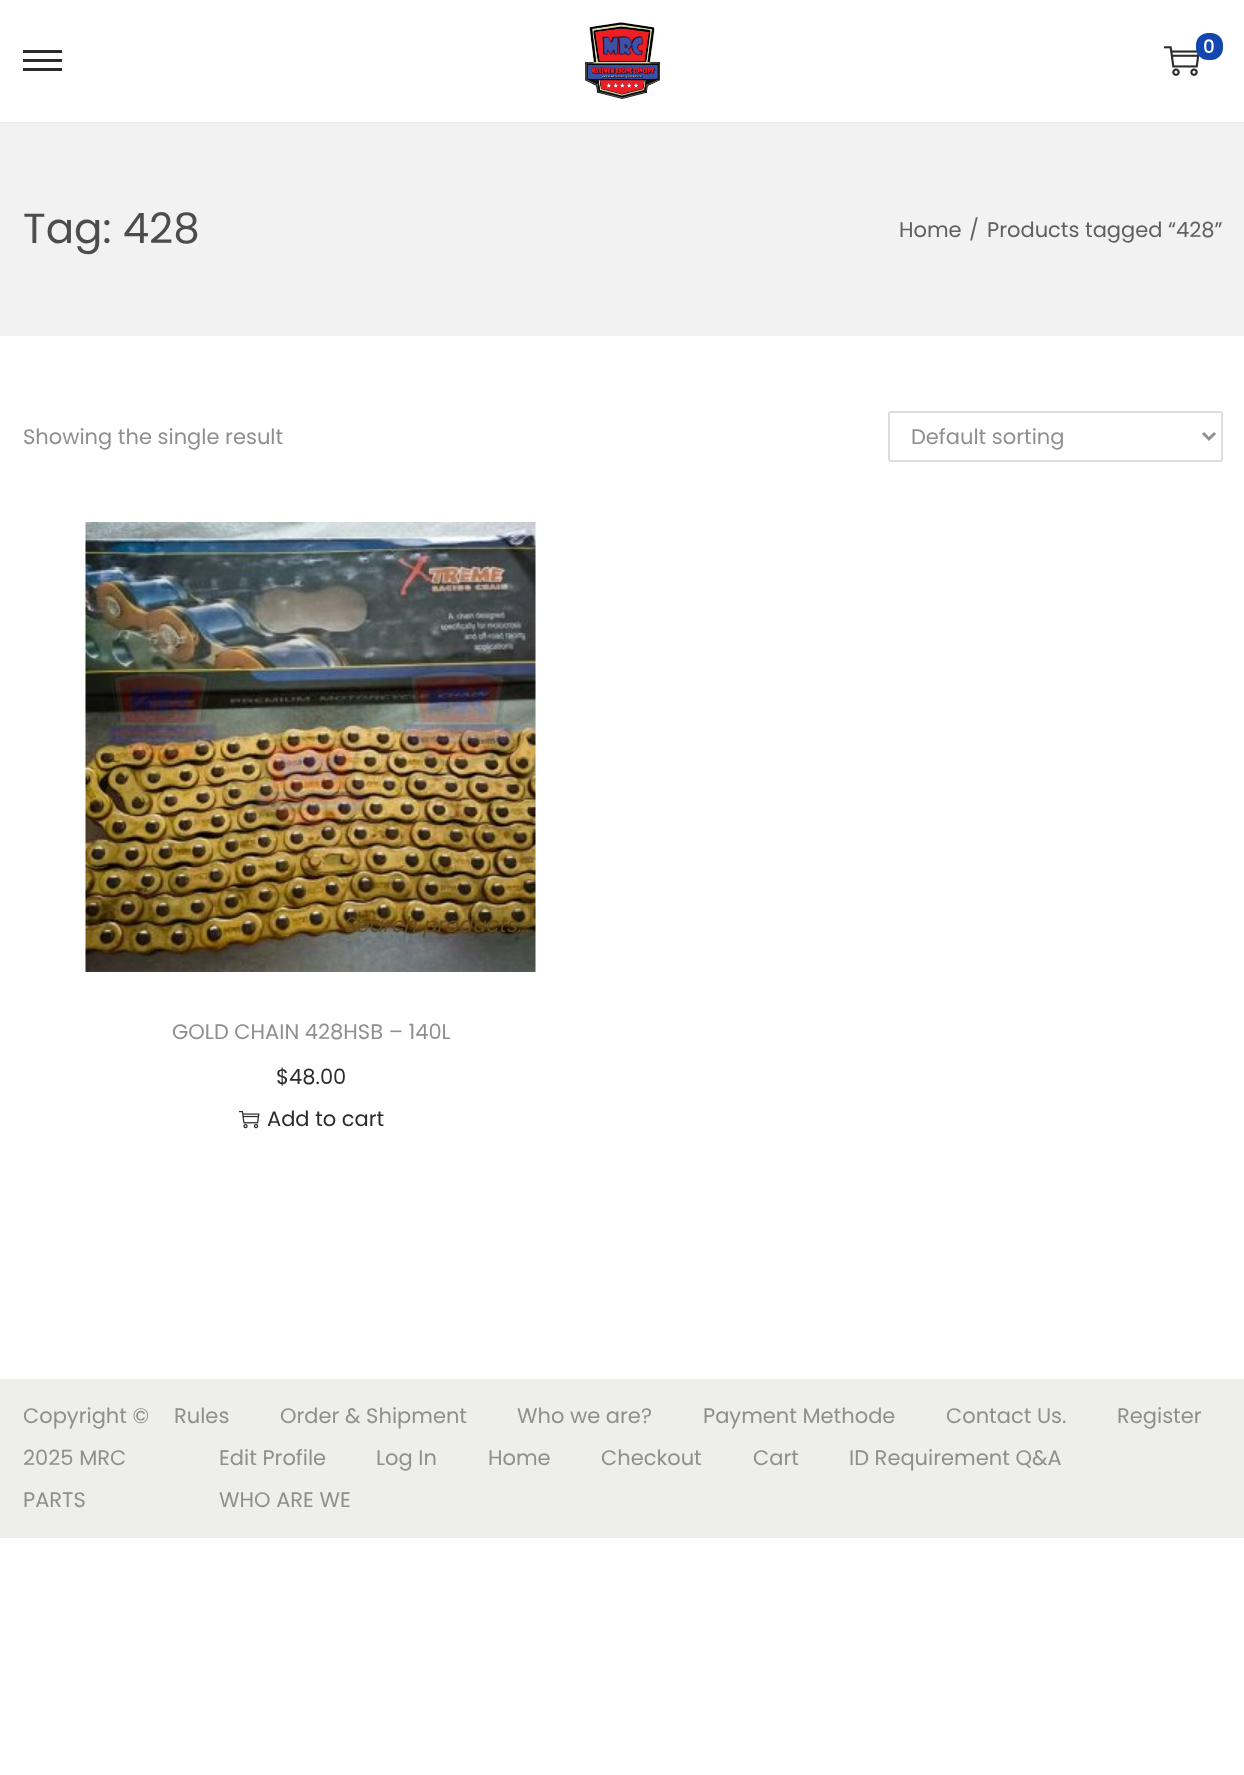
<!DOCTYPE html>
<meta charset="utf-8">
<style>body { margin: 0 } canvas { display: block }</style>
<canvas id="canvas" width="1244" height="1775"></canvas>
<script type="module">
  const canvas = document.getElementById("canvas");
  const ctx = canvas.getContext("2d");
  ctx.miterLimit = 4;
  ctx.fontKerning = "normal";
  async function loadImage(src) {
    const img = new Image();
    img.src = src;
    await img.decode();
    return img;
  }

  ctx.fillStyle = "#ffffff";
  ctx.fillRect(0, 0, 1244, 1775);
  ctx.fillStyle = "#eaeaea";
  ctx.fillRect(0, 122, 1244, 1);
  ctx.drawImage(await loadImage("img1.png"), 585, 22, 75, 77);
  ctx.drawImage(await loadImage("img2.png"), 1164, 46, 36, 30);
  ctx.fillStyle = "#1346af";
  ctx.beginPath();
  ctx.roundRect(1196, 33, 27, 27, 12);
  ctx.fill();
  ctx.font = "bold 18px Poppins";
  ctx.fillStyle = "#ffffff";
  ctx.fillText("0", 1203, 53);
  ctx.fillStyle = "#2b2b2b";
  ctx.fillRect(23, 59, 39, 3);
  ctx.fillRect(23, 50, 39, 3);
  ctx.fillRect(23, 68, 39, 3);
  ctx.fillStyle = "#f2f2f2";
  ctx.fillRect(0, 123, 1244, 213);
  ctx.font = "42px Poppins";
  ctx.fillStyle = "#4c4c4c";
  ctx.fillText("Tag: 428", 23, 243);
  ctx.font = "21px Poppins";
  ctx.fillStyle = "#606060";
  ctx.fillText("Home", 899, 237);
  ctx.fillText("/", 969, 237);
  ctx.fillText("Products tagged “428”", 987, 237);
  ctx.fillStyle = "#8f8f8f";
  ctx.fillText("Showing the single result", 23, 444);
  ctx.beginPath();
  ctx.roundRect(889, 412, 333, 49, 2);
  ctx.strokeStyle = "#dddddd";
  ctx.lineWidth = 2;
  ctx.stroke();
  ctx.beginPath();
  ctx.moveTo(1203, 433);
  ctx.lineTo(1209, 439);
  ctx.lineTo(1215, 433);
  ctx.strokeStyle = "#8f8f8f";
  ctx.lineWidth = 3;
  ctx.stroke();
  ctx.fillText("Default sorting", 911, 444);
  ctx.drawImage(await loadImage("img3.png"), 85, 522, 451, 450);
  ctx.fillText("GOLD CHAIN 428HSB – 140L", 172, 1039);
  ctx.fillStyle = "#2b2b2b";
  ctx.fillText("$48.00", 276, 1084);
  ctx.drawImage(await loadImage("img4.png"), 239, 1111, 21, 18);
  ctx.fillText("Add to cart", 267, 1126);
  ctx.fillStyle = "#eeeeec";
  ctx.fillRect(0, 1379, 1244, 159);
  ctx.fillStyle = "#8f8f8f";
  ctx.fillText("Copyright ©", 23, 1423);
  ctx.fillText("2025 MRC", 23, 1465);
  ctx.fillText("PARTS", 23, 1507);
  ctx.fillText("Rules", 174, 1423);
  ctx.fillText("Order & Shipment", 280, 1423);
  ctx.fillText("Who we are?", 517, 1423);
  ctx.fillText("Payment Methode", 703, 1423);
  ctx.fillText("Contact Us.", 946, 1423);
  ctx.fillText("Register", 1117, 1423);
  ctx.fillText("Edit Profile", 219, 1465);
  ctx.fillText("Log In", 376, 1465);
  ctx.fillText("Home", 488, 1465);
  ctx.fillText("Checkout", 601, 1465);
  ctx.fillText("Cart", 753, 1465);
  ctx.fillText("ID Requirement Q&A", 849, 1465);
  ctx.fillText("WHO ARE WE", 219, 1507);
  ctx.font = "italic 21px Poppins";
  ctx.fillStyle = "#604920";
  ctx.fillText("Search products…", 343, 932);
</script>
